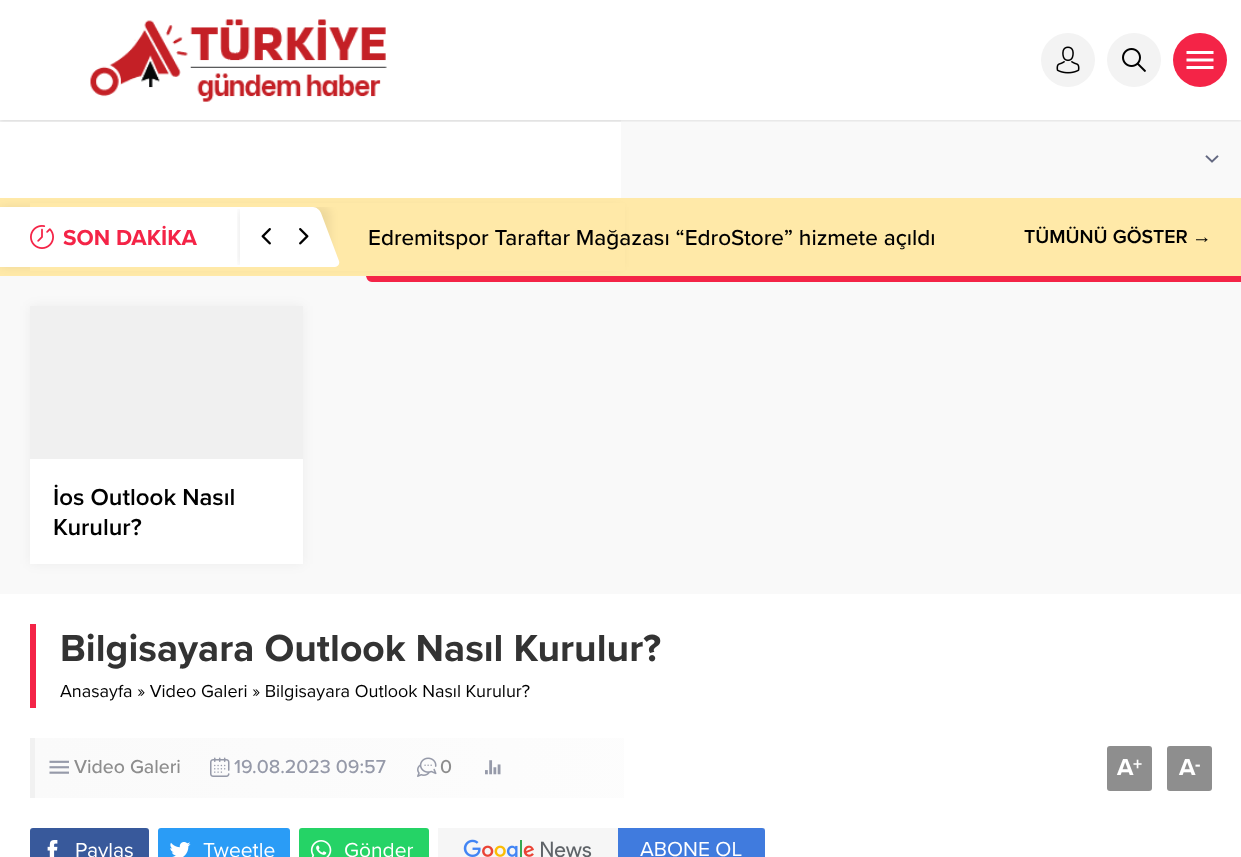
<!DOCTYPE html>
<meta charset="utf-8">
<style>body { margin: 0 } canvas { display: block }</style>
<canvas id="canvas" width="1241" height="857"></canvas>
<script type="module">
  const canvas = document.getElementById("canvas");
  const ctx = canvas.getContext("2d");
  ctx.miterLimit = 4;
  ctx.fontKerning = "normal";
  async function loadImage(src) {
    const img = new Image();
    img.src = src;
    await img.decode();
    return img;
  }
  let gradient;

  ctx.fillStyle = "#ffffff";
  ctx.fillRect(0, 0, 1241, 857);
  ctx.fillStyle = "#f3f3f3";
  ctx.fillRect(0, 120, 621, 2);
  ctx.fillStyle = "#ffe9a8";
  ctx.fillRect(0, 198, 1241, 78);
  ctx.fillStyle = "#f9f9f9";
  ctx.fillRect(0, 276, 1241, 318);
  ctx.fillStyle = "rgba(0, 0, 0, 0.07)";
  ctx.filter = "blur(4px)";
  ctx.beginPath();
  ctx.rect(0, 207, 621, 60);
  ctx.fill();
  ctx.filter = "none";
  ctx.fillStyle = "#f9f9f9";
  ctx.fillRect(621, 120, 620, 78);
  ctx.save();
  ctx.beginPath();
  ctx.rect(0, 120, 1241, 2);
  ctx.clip();
  ctx.fillStyle = "rgba(0, 0, 0, 0.15)";
  ctx.filter = "blur(2px)";
  ctx.beginPath();
  ctx.rect(0, 0, 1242, 120);
  ctx.fill();
  ctx.filter = "none";
  ctx.restore();
  ctx.drawImage(await loadImage("img1.png"), 90, 19, 297, 83);
  ctx.fillStyle = "#f3f3f3";
  ctx.beginPath();
  ctx.arc(1068, 60, 27, 0, Math.PI * 2);
  ctx.fill();
  ctx.drawImage(await loadImage("img2.png"), 1056, 46, 24, 28);
  ctx.beginPath();
  ctx.arc(1134, 60, 27, 0, Math.PI * 2);
  ctx.fill();
  ctx.drawImage(await loadImage("img3.png"), 1122, 48, 24, 24);
  ctx.fillStyle = "#f42447";
  ctx.beginPath();
  ctx.arc(1200, 60, 27, 0, Math.PI * 2);
  ctx.fill();
  ctx.drawImage(await loadImage("img4.png"), 1186, 51, 28, 18);
  ctx.drawImage(await loadImage("img5.png"), 1205, 155, 14, 8);
  ctx.fillStyle = "#ffe9a8";
  ctx.fillRect(30, 203, 595, 68);
  ctx.save();
  ctx.beginPath();
  ctx.rect(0, 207, 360, 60);
  ctx.clip();
  ctx.fillStyle = "rgba(0, 0, 0, 0.07)";
  ctx.filter = "blur(4px)";
  ctx.beginPath();
  ctx.roundRect(-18, 207, 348, 60, 6);
  ctx.fill();
  ctx.filter = "none";
  ctx.restore();
  ctx.fillStyle = "#ffffff";
  ctx.beginPath();
  ctx.moveTo(-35, 207);
  ctx.lineTo(313, 207);
  ctx.bezierCurveTo(316, 207, 320, 210, 321, 213);
  ctx.lineTo(339, 261);
  ctx.bezierCurveTo(340, 264, 338, 267, 335, 267);
  ctx.lineTo(-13, 267);
  ctx.bezierCurveTo(-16, 267, -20, 264, -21, 261);
  ctx.lineTo(-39, 213);
  ctx.bezierCurveTo(-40, 210, -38, 207, -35, 207);
  ctx.closePath();
  ctx.fill();
  ctx.drawImage(await loadImage("img6.png"), 30, 225, 24, 24);
  ctx.font = "bold 22.5px Proxima Nova";
  ctx.fillStyle = "#f42447";
  ctx.fillText("SON DAKİKA", 63, 245);
  ctx.save();
  ctx.beginPath();
  ctx.rect(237, 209, 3, 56);
  ctx.clip();
  ctx.fillStyle = "rgba(0, 0, 0, 0.1)";
  ctx.filter = "blur(4px)";
  ctx.beginPath();
  ctx.rect(240, 210, 75, 54);
  ctx.fill();
  ctx.filter = "none";
  ctx.restore();
  ctx.drawImage(await loadImage("img7.png"), 261, 228, 10, 17);
  ctx.drawImage(await loadImage("img8.png"), 299, 228, 10, 17);
  ctx.font = "500 22.5px Proxima Nova";
  ctx.fillStyle = "#000000";
  ctx.fillText("Edremitspor Taraftar Mağazası “EdroStore” hizmete açıldı", 368, 245);
  ctx.fillStyle = "#f42447";
  ctx.beginPath();
  ctx.moveTo(366, 276);
  ctx.lineTo(1015, 276);
  ctx.lineTo(1017, 282);
  ctx.lineTo(372, 282);
  ctx.bezierCurveTo(370, 282, 368, 281, 367, 279);
  ctx.closePath();
  ctx.fill();
  ctx.font = "600 19.5px Proxima Nova";
  ctx.fillStyle = "#000000";
  ctx.fillText("TÜMÜNÜ GÖSTER", 1024, 243);
  ctx.font = "bold 19.5px Liberation Sans";
  ctx.fillText("→", 1192, 243);
  ctx.fillStyle = "#f42447";
  ctx.fillRect(1015, 276, 226, 6);
  ctx.fillStyle = "rgba(0, 0, 0, 0.05)";
  ctx.filter = "blur(6px)";
  ctx.beginPath();
  ctx.rect(30, 306, 273, 258);
  ctx.fill();
  ctx.filter = "none";
  ctx.fillStyle = "#f0f0f0";
  ctx.fillRect(30, 306, 273, 153);
  ctx.fillStyle = "#ffffff";
  ctx.fillRect(30, 459, 273, 105);
  ctx.font = "600 24px Proxima Nova";
  ctx.fillStyle = "#000000";
  ctx.fillText("İos Outlook Nasıl", 53, 505);
  ctx.fillText("Kurulur?", 53, 535);
  ctx.fillStyle = "#f42447";
  ctx.fillRect(30, 624, 6, 84);
  ctx.font = "bold 39px Proxima Nova";
  ctx.fillStyle = "#333333";
  ctx.fillText("Bilgisayara Outlook Nasıl Kurulur?", 60, 661);
  ctx.font = "18px Proxima Nova";
  ctx.fillStyle = "#000000";
  ctx.fillText("Anasayfa » Video Galeri » Bilgisayara Outlook Nasıl Kurulur?", 60, 697);
  gradient = ctx.createLinearGradient(35, 768, 1212, 768);
  gradient.addColorStop(0, "#fafafa");
  gradient.addColorStop(1, "#ffffff");
  ctx.fillStyle = gradient;
  ctx.fillRect(35, 738, 589, 60);
  ctx.fillStyle = "#f1f1f1";
  ctx.fillRect(30, 738, 5, 60);
  ctx.drawImage(await loadImage("img9.png"), 49, 760, 20, 14);
  ctx.font = "500 19.5px Proxima Nova";
  ctx.fillStyle = "#8d8d8d";
  ctx.fillText("Video Galeri", 74, 773);
  ctx.drawImage(await loadImage("img10.png"), 210, 757, 20, 20);
  ctx.fillStyle = "#969aa9";
  ctx.fillText("19.08.2023 09:57", 234, 773);
  ctx.drawImage(await loadImage("img11.png"), 417, 757, 20, 20);
  ctx.fillStyle = "#8d8d8d";
  ctx.fillText("0", 440, 773);
  ctx.drawImage(await loadImage("img12.png"), 485, 760, 16, 15);
  ctx.fillStyle = "#8e8e8e";
  ctx.beginPath();
  ctx.roundRect(1107, 746, 45, 45, 3);
  ctx.fill();
  ctx.font = "bold 24px Proxima Nova";
  ctx.fillStyle = "#ffffff";
  ctx.fillText("A", 1117, 775);
  ctx.font = "bold 18px Proxima Nova";
  ctx.fillText("+", 1133, 770);
  ctx.fillStyle = "#8e8e8e";
  ctx.beginPath();
  ctx.roundRect(1167, 746, 45, 45, 3);
  ctx.fill();
  ctx.font = "bold 24px Proxima Nova";
  ctx.fillStyle = "#ffffff";
  ctx.fillText("A", 1179, 775);
  ctx.font = "bold 18px Proxima Nova";
  ctx.fillText("-", 1195, 770);
  ctx.fillStyle = "#38599b";
  ctx.beginPath();
  ctx.roundRect(30, 828, 119, 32, 3);
  ctx.fill();
  ctx.drawImage(await loadImage("img13.png"), 47, 840, 11, 17);
  ctx.font = "21px Proxima Nova";
  ctx.fillStyle = "#ffffff";
  ctx.fillText("Paylaş", 75, 857);
  ctx.fillStyle = "#2a9cf6";
  ctx.beginPath();
  ctx.roundRect(158, 828, 132, 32, 3);
  ctx.fill();
  ctx.drawImage(await loadImage("img14.png"), 170, 842, 21, 15);
  ctx.fillStyle = "#ffffff";
  ctx.fillText("Tweetle", 203, 857);
  ctx.fillStyle = "#25d366";
  ctx.beginPath();
  ctx.roundRect(299, 828, 130, 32, 3);
  ctx.fill();
  ctx.drawImage(await loadImage("img15.png"), 310, 840, 22, 17);
  ctx.fillStyle = "#ffffff";
  ctx.fillText("Gönder", 344, 857);
  ctx.fillStyle = "#4583ec";
  ctx.beginPath();
  ctx.roundRect(438, 828, 327, 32, 3);
  ctx.fill();
  ctx.fillStyle = "#f6f6f6";
  ctx.fillRect(438, 828, 180, 29);
  ctx.drawImage(await loadImage("img16.png"), 463, 839, 129, 18);
  ctx.fillStyle = "rgba(0, 0, 0, 0.06)";
  ctx.fillRect(618, 828, 147, 29);
  ctx.fillStyle = "#ffffff";
  ctx.fillText("ABONE OL", 640, 856);
</script>
